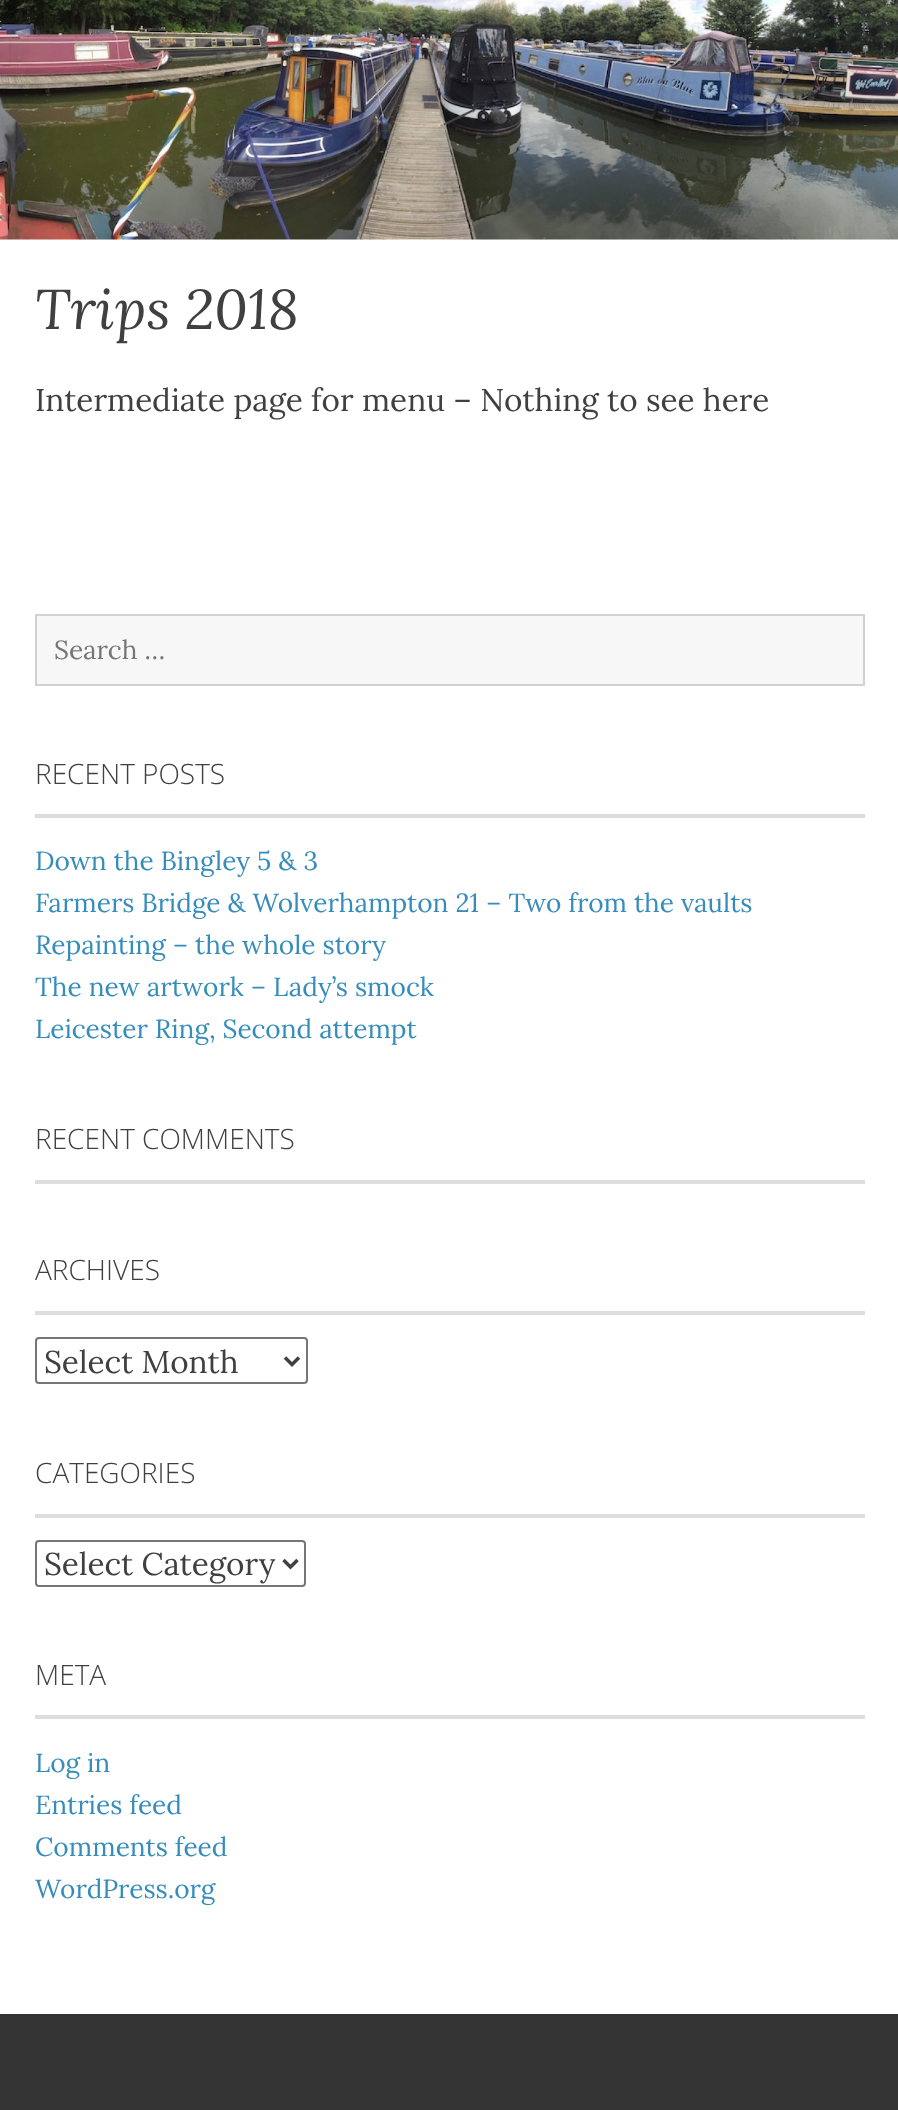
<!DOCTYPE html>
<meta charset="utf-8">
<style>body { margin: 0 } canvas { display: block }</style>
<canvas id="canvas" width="898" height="2110"></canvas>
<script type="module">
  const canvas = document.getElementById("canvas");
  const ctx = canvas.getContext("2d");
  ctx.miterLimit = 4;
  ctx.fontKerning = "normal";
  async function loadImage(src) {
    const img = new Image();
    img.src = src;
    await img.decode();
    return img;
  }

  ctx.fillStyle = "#ffffff";
  ctx.fillRect(0, 0, 898, 2110);
  ctx.drawImage(await loadImage("img1.png"), 0, 0, 898, 240);
  ctx.font = "italic 56px Lora";
  ctx.fillStyle = "#404040";
  ctx.fillText("Trips 2018", 35, 329);
  ctx.font = "31.5px Lora";
  ctx.fillText("Intermediate page for menu – Nothing to see here", 35, 411);
  ctx.fillStyle = "#f7f7f7";
  ctx.beginPath();
  ctx.rect(36, 615, 828, 70);
  ctx.fill();
  ctx.strokeStyle = "#d1d1d1";
  ctx.lineWidth = 2;
  ctx.stroke();
  ctx.font = "26.25px Lora";
  ctx.fillStyle = "#757575";
  ctx.fillText("Search …", 54, 659);
  ctx.fillStyle = "#dddddd";
  ctx.fillRect(35, 814, 830, 4);
  ctx.font = "300 28px Open Sans";
  ctx.fillStyle = "#404040";
  ctx.fillText("RECENT POSTS", 35, 784);
  ctx.font = "26.25px Lora";
  ctx.fillStyle = "#368cbb";
  ctx.fillText("Down the Bingley 5 & 3", 35, 870);
  ctx.fillText("Farmers Bridge & Wolverhampton 21 – Two from the vaults", 35, 912);
  ctx.fillText("Repainting – the whole story", 35, 954);
  ctx.fillText("The new artwork – Lady’s smock", 35, 996);
  ctx.fillText("Leicester Ring, Second attempt", 35, 1038);
  ctx.fillStyle = "#dddddd";
  ctx.fillRect(35, 1180, 830, 4);
  ctx.font = "300 28px Open Sans";
  ctx.fillStyle = "#404040";
  ctx.fillText("RECENT COMMENTS", 35, 1149);
  ctx.fillStyle = "#dddddd";
  ctx.fillRect(35, 1311, 830, 4);
  ctx.fillStyle = "#404040";
  ctx.fillText("ARCHIVES", 35, 1280);
  ctx.beginPath();
  ctx.roundRect(36, 1338, 271, 45, 3);
  ctx.strokeStyle = "#767676";
  ctx.stroke();
  ctx.beginPath();
  ctx.moveTo(285, 1357.5);
  ctx.lineTo(292, 1364.5);
  ctx.lineTo(299, 1357.5);
  ctx.strokeStyle = "#404040";
  ctx.lineWidth = 3.5;
  ctx.stroke();
  ctx.font = "31.5px Lora";
  ctx.fillText("Select Month", 44, 1373);
  ctx.fillStyle = "#dddddd";
  ctx.fillRect(35, 1514, 830, 4);
  ctx.font = "300 28px Open Sans";
  ctx.fillStyle = "#404040";
  ctx.fillText("CATEGORIES", 35, 1483);
  ctx.beginPath();
  ctx.roundRect(36, 1541, 269, 45, 3);
  ctx.strokeStyle = "#767676";
  ctx.lineWidth = 2;
  ctx.stroke();
  ctx.beginPath();
  ctx.moveTo(283.5, 1560);
  ctx.lineTo(290.5, 1567);
  ctx.lineTo(297.5, 1560);
  ctx.strokeStyle = "#404040";
  ctx.lineWidth = 3.5;
  ctx.stroke();
  ctx.font = "31.5px Lora";
  ctx.fillText("Select Category", 44, 1575);
  ctx.fillStyle = "#dddddd";
  ctx.fillRect(35, 1715, 830, 4);
  ctx.font = "300 28px Open Sans";
  ctx.fillStyle = "#404040";
  ctx.fillText("META", 35, 1685);
  ctx.font = "26.25px Lora";
  ctx.fillStyle = "#368cbb";
  ctx.fillText("Log in", 35, 1772);
  ctx.fillText("Entries feed", 35, 1814);
  ctx.fillText("Comments feed", 35, 1856);
  ctx.fillText("WordPress.org", 35, 1898);
  ctx.fillStyle = "#333333";
  ctx.fillRect(0, 2014, 898, 96);
</script>
